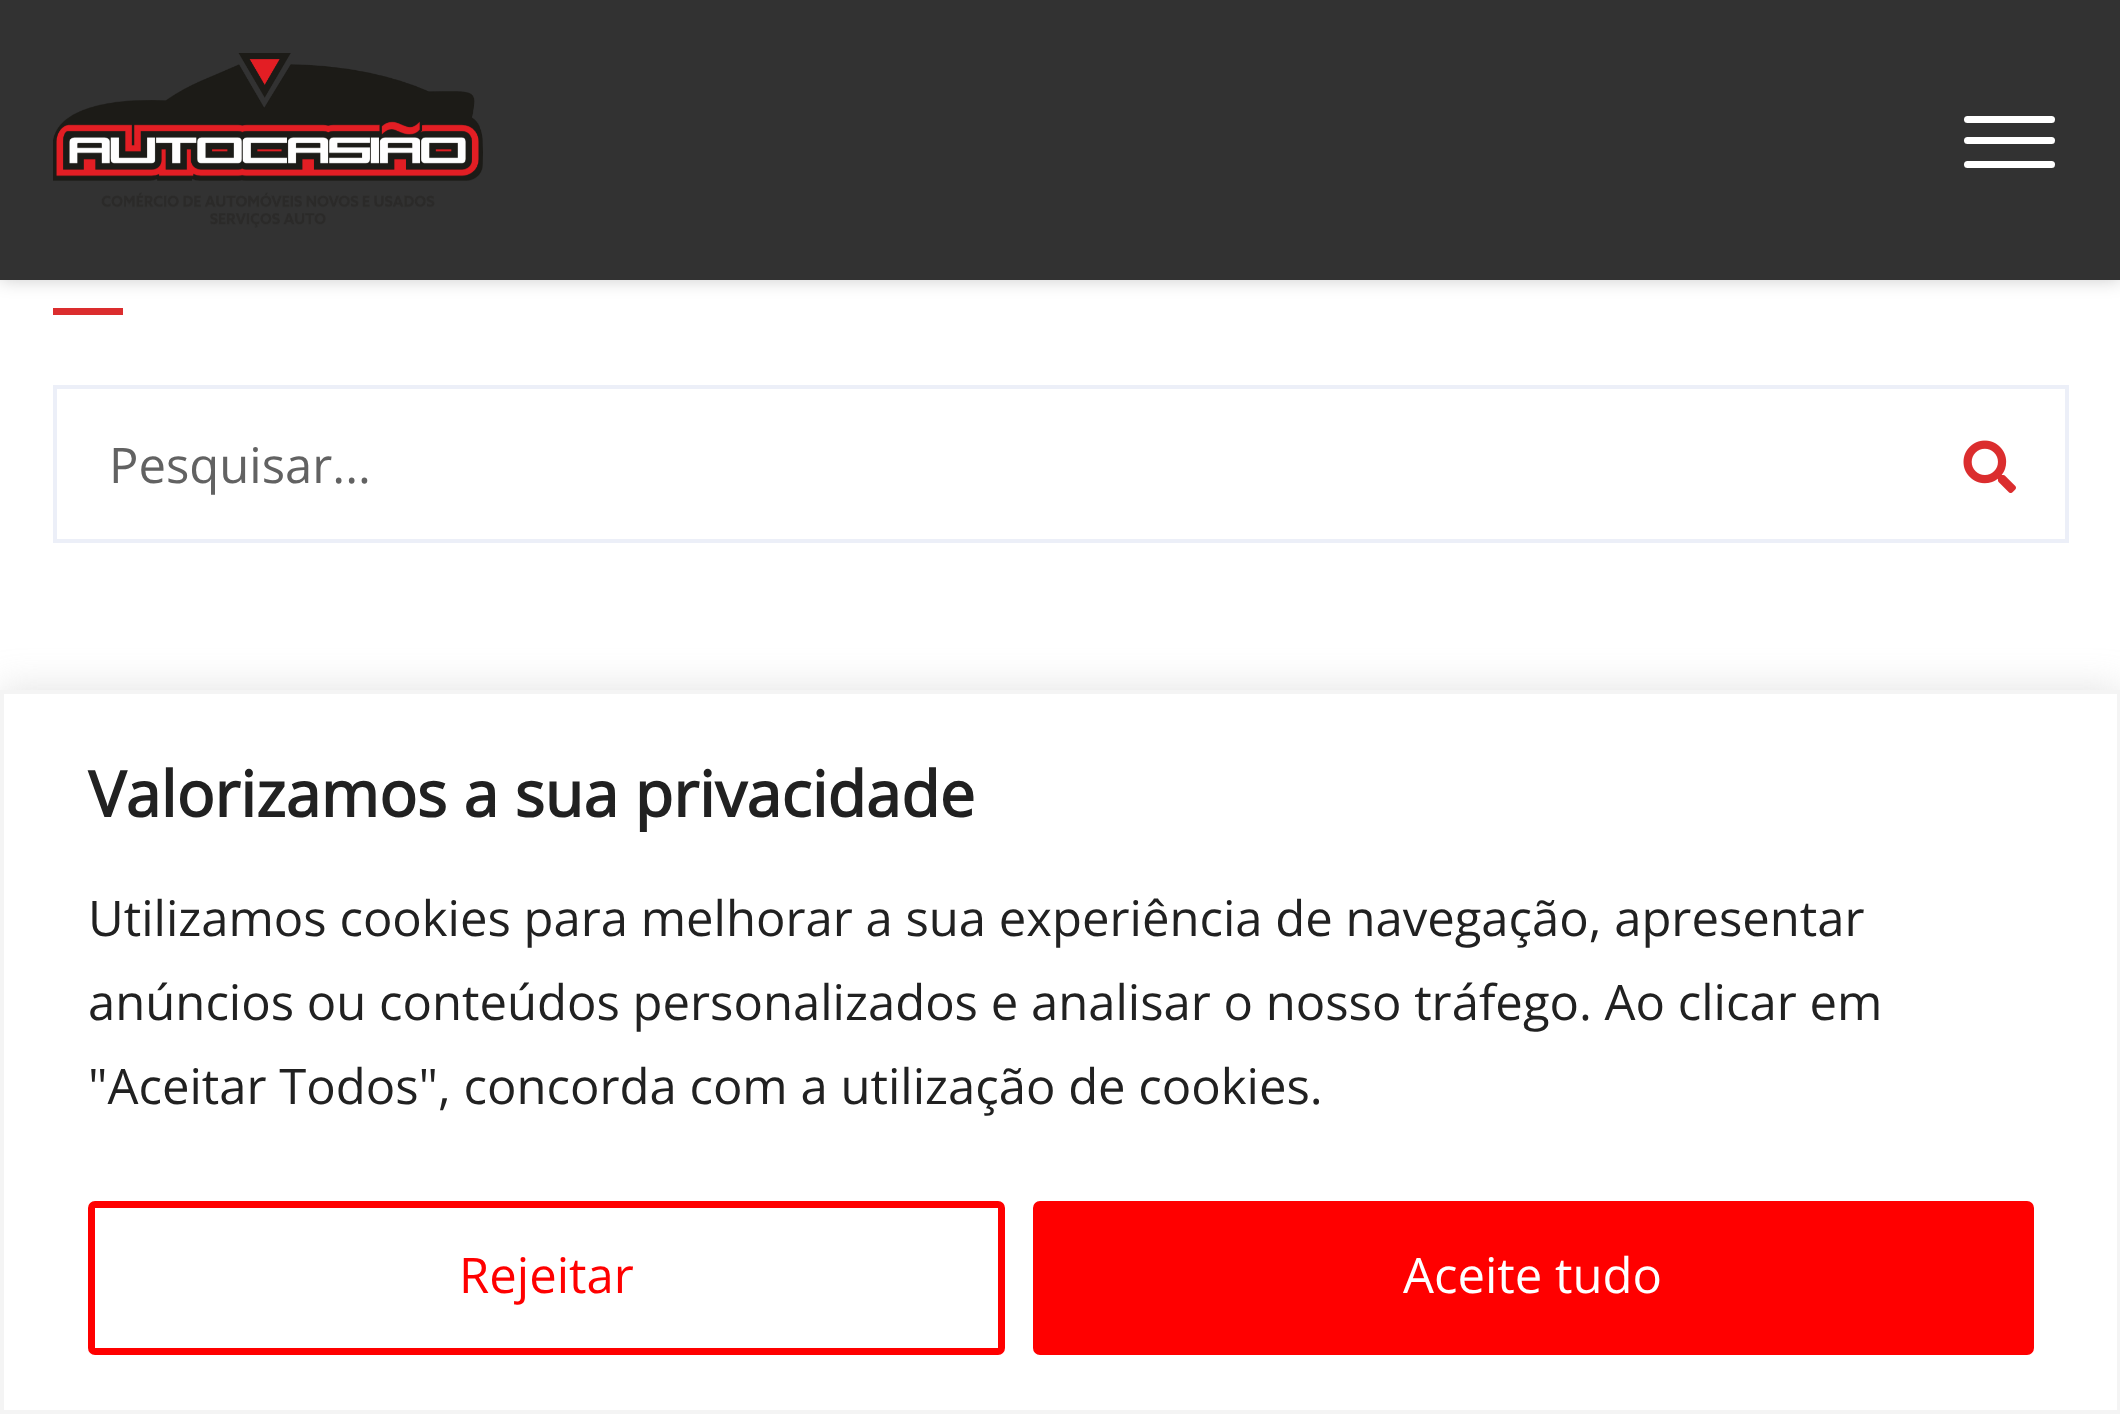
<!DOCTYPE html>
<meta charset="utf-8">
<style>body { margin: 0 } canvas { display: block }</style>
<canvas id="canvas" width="2120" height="1414"></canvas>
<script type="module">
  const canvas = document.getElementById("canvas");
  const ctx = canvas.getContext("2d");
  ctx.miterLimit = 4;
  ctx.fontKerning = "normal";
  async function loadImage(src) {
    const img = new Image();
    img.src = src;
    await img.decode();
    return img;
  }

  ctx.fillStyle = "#ffffff";
  ctx.fillRect(0, 0, 2120, 1414);
  ctx.fillStyle = "rgba(0, 0, 0, 0.2)";
  ctx.filter = "blur(9px)";
  ctx.beginPath();
  ctx.rect(0, 0, 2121, 280);
  ctx.fill();
  ctx.filter = "none";
  ctx.fillStyle = "#323232";
  ctx.fillRect(0, 0, 2120, 280);
  ctx.drawImage(await loadImage("img1.png"), 53, 53, 430, 175);
  ctx.fillStyle = "#ffffff";
  ctx.beginPath();
  ctx.roundRect(1964, 116, 91, 7, 3.5);
  ctx.fill();
  ctx.beginPath();
  ctx.roundRect(1964, 137, 91, 7, 3.5);
  ctx.fill();
  ctx.beginPath();
  ctx.roundRect(1964, 161, 91, 7, 3.5);
  ctx.fill();
  ctx.fillStyle = "#db2d2e";
  ctx.fillRect(53, 308, 70, 7);
  ctx.strokeStyle = "#eceff8";
  ctx.lineWidth = 4;
  ctx.strokeRect(55, 387, 2012, 154);
  ctx.font = "49px Open Sans";
  ctx.fillStyle = "#626262";
  ctx.fillText("Pesquisar...", 109, 483);
  ctx.drawImage(await loadImage("img2.png"), 1963, 440, 53, 53);
  ctx.fillStyle = "rgba(172, 171, 171, 0.3)";
  ctx.filter = "blur(17.5px)";
  ctx.beginPath();
  ctx.rect(0, 686, 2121, 725);
  ctx.fill();
  ctx.filter = "none";
  ctx.fillStyle = "#ffffff";
  ctx.beginPath();
  ctx.rect(2, 692, 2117, 720);
  ctx.fill();
  ctx.strokeStyle = "#f4f4f4";
  ctx.stroke();
  ctx.font = "bold 63px Open Sans";
  ctx.fillStyle = "#212121";
  ctx.fillText("Valorizamos a sua privacidade", 88, 817);
  ctx.font = "49px Open Sans";
  ctx.fillText("Utilizamos cookies para melhorar a sua experiência de navegação, apresentar", 88, 936);
  ctx.fillText("anúncios ou conteúdos personalizados e analisar o nosso tráfego. Ao clicar em", 88, 1020);
  ctx.fillText("\"Aceitar Todos\", concorda com a utilização de cookies.", 88, 1104);
  ctx.beginPath();
  ctx.roundRect(91.5, 1204.5, 910, 147, 3.5);
  ctx.strokeStyle = "#ff0000";
  ctx.lineWidth = 7;
  ctx.stroke();
  ctx.fillStyle = "#ff0000";
  ctx.fillText("Rejeitar", 459, 1293);
  ctx.beginPath();
  ctx.roundRect(1036.5, 1204.5, 994, 147, 3.5);
  ctx.fill();
  ctx.stroke();
  ctx.fillStyle = "#ffffff";
  ctx.fillText("Aceite tudo", 1403, 1293);
</script>
